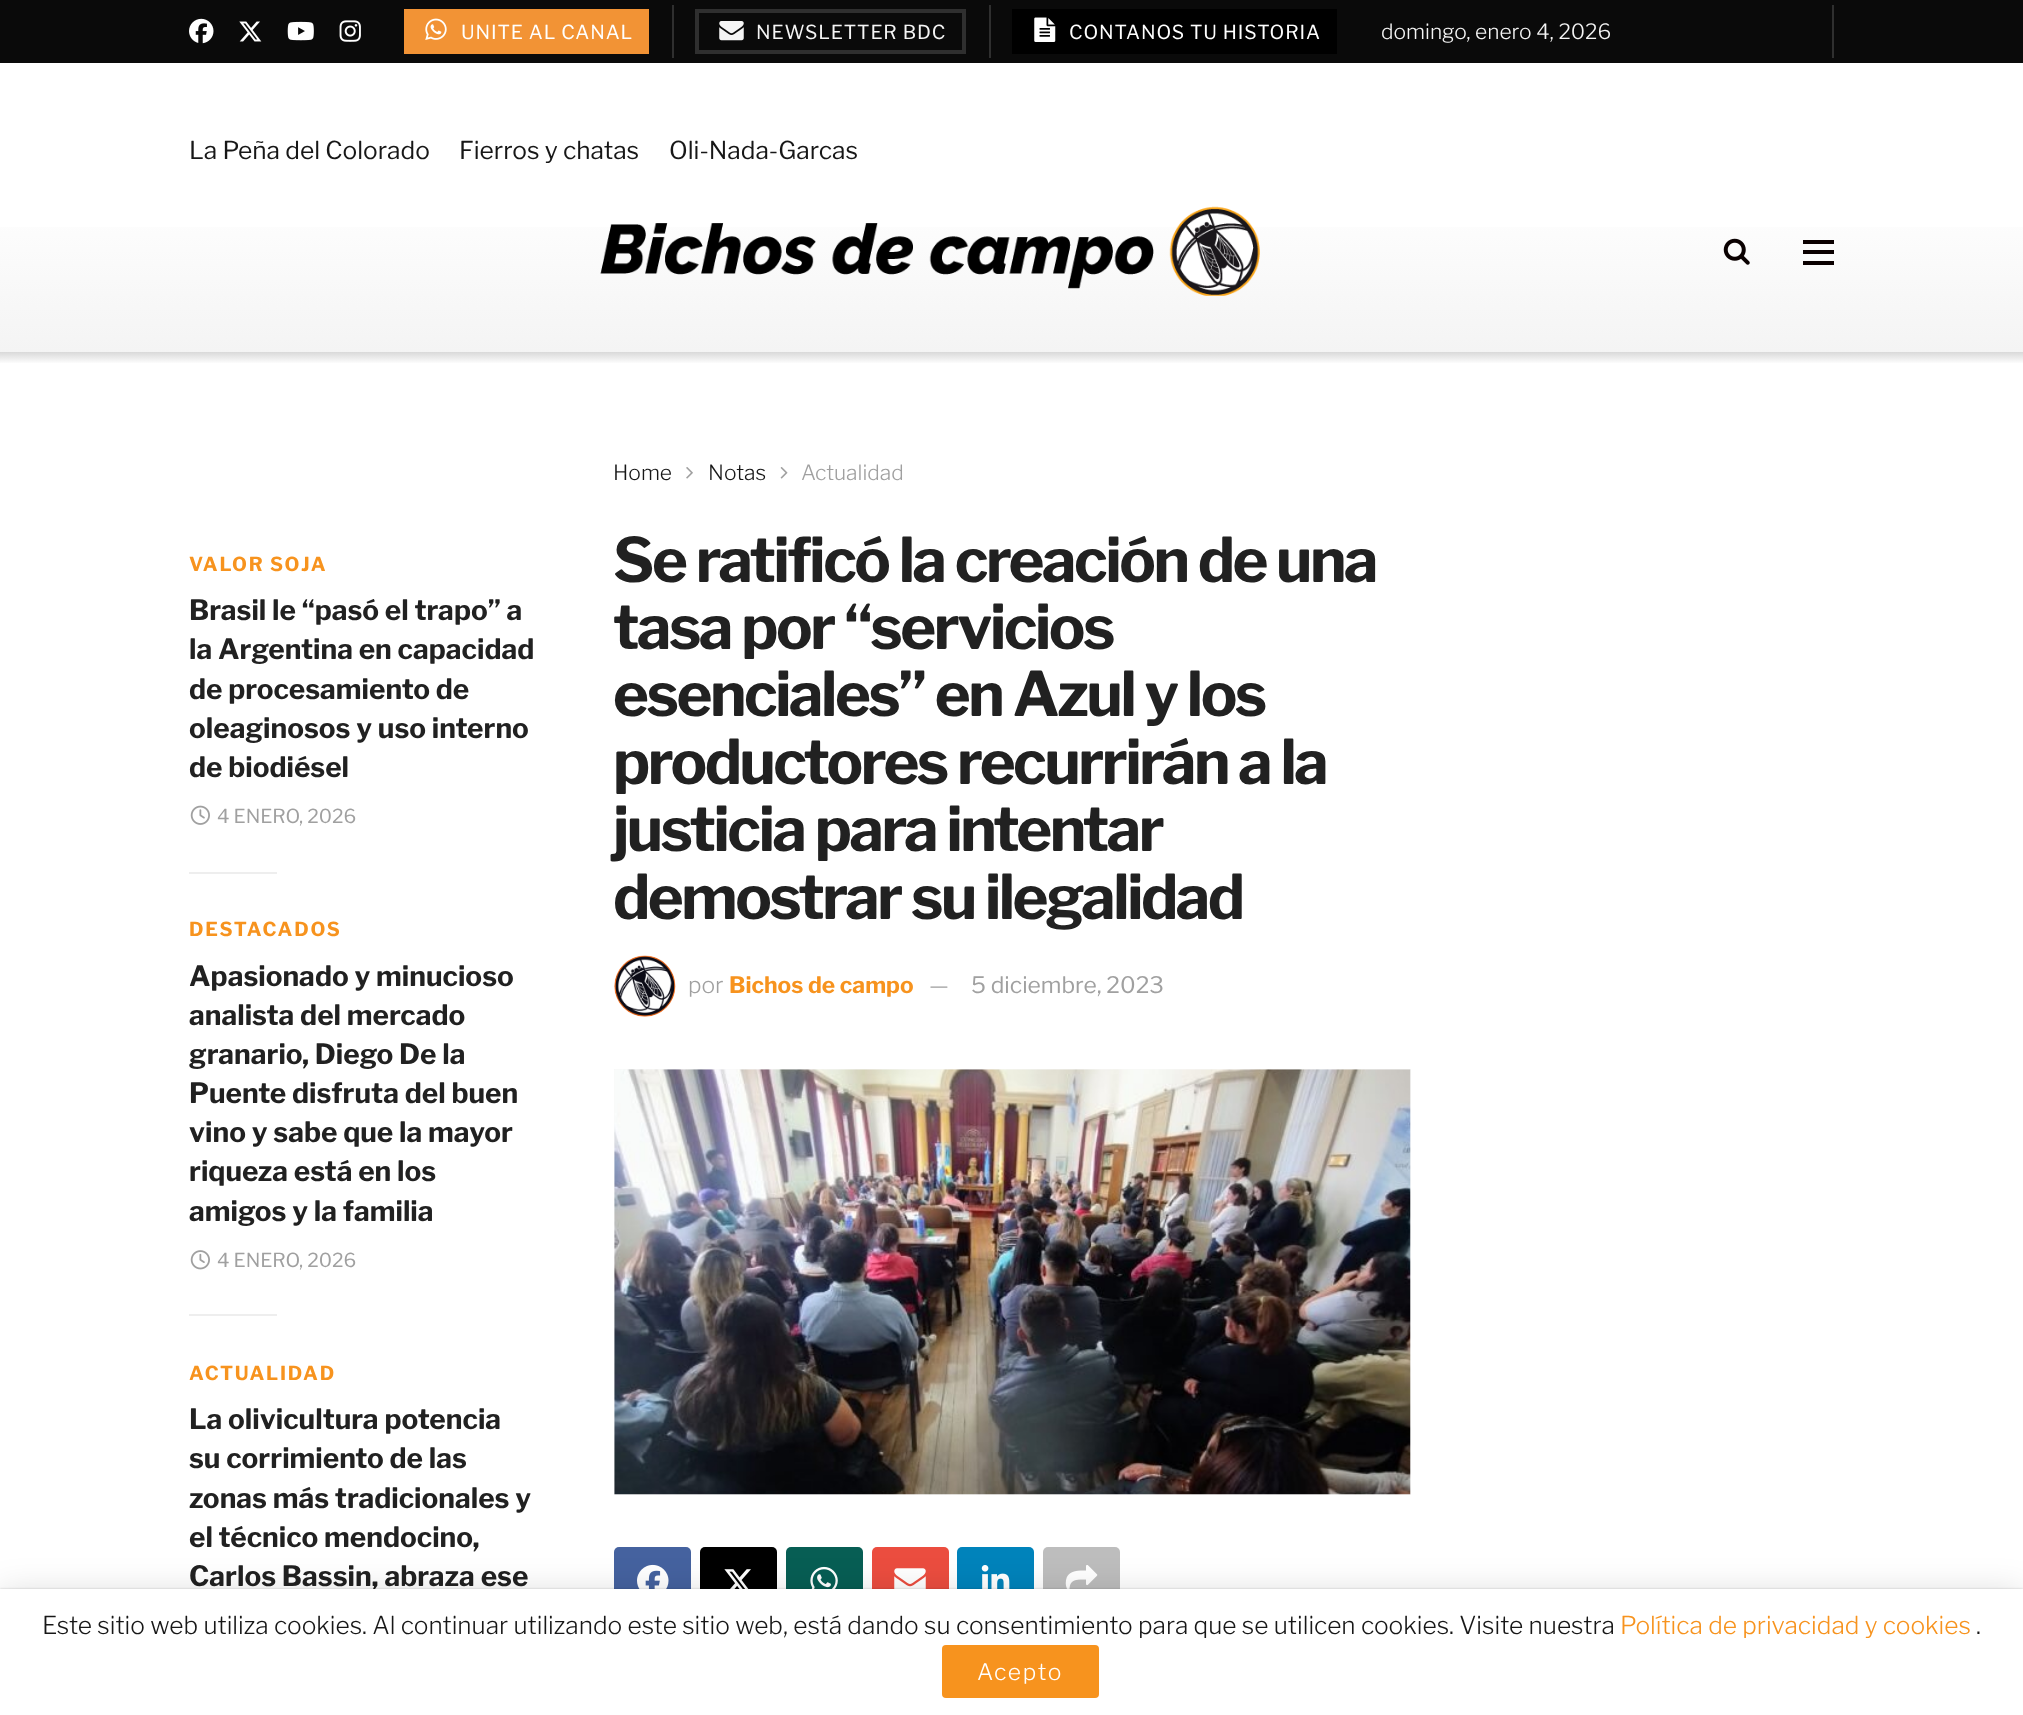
<!DOCTYPE html>
<meta charset="utf-8">
<style>body { margin: 0 } canvas { display: block }</style>
<canvas id="canvas" width="2023" height="1715"></canvas>
<script type="module">
  const canvas = document.getElementById("canvas");
  const ctx = canvas.getContext("2d");
  ctx.miterLimit = 4;
  ctx.fontKerning = "normal";
  async function loadImage(src) {
    const img = new Image();
    img.src = src;
    await img.decode();
    return img;
  }
  let gradient;

  ctx.fillStyle = "#ffffff";
  ctx.fillRect(0, 0, 2023, 1715);
  ctx.fillStyle = "#0a0a0a";
  ctx.fillRect(0, 0, 2023, 63);
  ctx.drawImage(await loadImage("img1.png"), 189, 18, 25, 26);
  ctx.drawImage(await loadImage("img2.png"), 239, 21, 23, 21);
  ctx.drawImage(await loadImage("img3.png"), 287, 21, 27, 20);
  ctx.drawImage(await loadImage("img4.png"), 339, 20, 22, 22);
  ctx.fillStyle = "#f29335";
  ctx.fillRect(404, 9, 245, 45);
  ctx.drawImage(await loadImage("img5.png"), 425, 18, 22, 22);
  ctx.letterSpacing = "0.9px";
  ctx.font = "100 19.25px 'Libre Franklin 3'";
  ctx.fillStyle = "#ffffff";
  ctx.fillText("UNITE AL CANAL", 461, 39);
  ctx.fillStyle = "#2f2f2f";
  ctx.fillRect(672, 5, 2, 53);
  ctx.strokeStyle = "#2f2f2f";
  ctx.lineWidth = 4;
  ctx.strokeRect(697, 11, 267, 41);
  ctx.drawImage(await loadImage("img6.png"), 719, 21, 25, 20);
  ctx.fillStyle = "#f5f5f5";
  ctx.fillText("NEWSLETTER BDC", 756, 39);
  ctx.fillStyle = "#2f2f2f";
  ctx.fillRect(989, 5, 2, 53);
  ctx.fillStyle = "#000000";
  ctx.fillRect(1012, 9, 325, 45);
  ctx.drawImage(await loadImage("img7.png"), 1034, 17, 22, 25);
  ctx.fillStyle = "#ffffff";
  ctx.fillText("CONTANOS TU HISTORIA", 1069, 39);
  ctx.letterSpacing = "0px";
  ctx.font = "100 21px Libre Franklin";
  ctx.fillStyle = "#f5f5f5";
  ctx.fillText("domingo, enero 4, 2026", 1381, 39);
  ctx.fillStyle = "#2f2f2f";
  ctx.fillRect(1832, 5, 2, 53);
  ctx.font = "100 24.5px 'Libre Franklin 3'";
  ctx.fillStyle = "#171717";
  ctx.fillText("La Peña del Colorado", 189, 159);
  ctx.fillText("Fierros y chatas", 459, 159);
  ctx.fillText("Oli-Nada-Garcas", 669, 159);
  gradient = ctx.createLinearGradient(1012, 150, 1012, 352);
  gradient.addColorStop(0.2, "#ffffff");
  gradient.addColorStop(1, "#f4f4f4");
  ctx.fillStyle = gradient;
  ctx.fillRect(0, 227, 2023, 125);
  ctx.drawImage(await loadImage("img8.png"), 600, 206, 660, 90);
  ctx.drawImage(await loadImage("img9.png"), 1723, 238, 27, 27);
  ctx.fillStyle = "#0a0000";
  ctx.fillRect(1803, 240, 31, 4);
  ctx.fillRect(1803, 250, 31, 4);
  ctx.fillRect(1803, 261, 31, 4);
  gradient = ctx.createLinearGradient(1012, 352, 1012, 364);
  gradient.addColorStop(0, "#d9d9d9");
  gradient.addColorStop(1, "#ffffff");
  ctx.fillStyle = gradient;
  ctx.fillRect(0, 352, 2023, 11);
  ctx.letterSpacing = "1.75px";
  ctx.font = "100 19.25px 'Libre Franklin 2'";
  ctx.fillStyle = "#f7931e";
  ctx.fillText("VALOR SOJA", 189, 571);
  ctx.letterSpacing = "0px";
  ctx.font = "100 28px 'Libre Franklin 2'";
  ctx.fillStyle = "#212121";
  ctx.fillText("Brasil le “pasó el trapo” a", 189, 620);
  ctx.fillText("la Argentina en capacidad", 189, 659);
  ctx.fillText("de procesamiento de", 189, 699);
  ctx.fillText("oleaginosos y uso interno", 189, 738);
  ctx.fillText("de biodiésel", 189, 777);
  ctx.drawImage(await loadImage("img10.png"), 190, 805, 20, 20);
  ctx.font = "100 19.25px 'Libre Franklin 3'";
  ctx.fillStyle = "#a0a0a0";
  ctx.fillText("4 ENERO, 2026", 217, 823);
  ctx.fillStyle = "#eeeeee";
  ctx.fillRect(189, 872, 88, 2);
  ctx.letterSpacing = "1.75px";
  ctx.font = "100 19.25px 'Libre Franklin 2'";
  ctx.fillStyle = "#f7931e";
  ctx.fillText("DESTACADOS", 189, 936);
  ctx.letterSpacing = "0px";
  ctx.font = "100 28px 'Libre Franklin 2'";
  ctx.fillStyle = "#212121";
  ctx.fillText("Apasionado y minucioso", 189, 986);
  ctx.fillText("analista del mercado", 189, 1025);
  ctx.fillText("granario, Diego De la", 189, 1064);
  ctx.fillText("Puente disfruta del buen", 189, 1103);
  ctx.fillText("vino y sabe que la mayor", 189, 1142);
  ctx.fillText("riqueza está en los", 189, 1181);
  ctx.fillText("amigos y la familia", 189, 1221);
  ctx.drawImage(await loadImage("img11.png"), 190, 1250, 20, 20);
  ctx.font = "100 19.25px 'Libre Franklin 3'";
  ctx.fillStyle = "#a0a0a0";
  ctx.fillText("4 ENERO, 2026", 217, 1267);
  ctx.fillStyle = "#eeeeee";
  ctx.fillRect(189, 1314, 88, 2);
  ctx.letterSpacing = "1.75px";
  ctx.font = "100 19.25px 'Libre Franklin 2'";
  ctx.fillStyle = "#f7931e";
  ctx.fillText("ACTUALIDAD", 189, 1380);
  ctx.letterSpacing = "0px";
  ctx.font = "100 28px 'Libre Franklin 2'";
  ctx.fillStyle = "#212121";
  ctx.fillText("La olivicultura potencia", 189, 1429);
  ctx.fillText("su corrimiento de las", 189, 1468);
  ctx.fillText("zonas más tradicionales y", 189, 1508);
  ctx.fillText("el técnico mendocino,", 189, 1547);
  ctx.fillText("Carlos Bassin, abraza ese", 189, 1586);
  ctx.font = "100 21px Libre Franklin";
  ctx.fillStyle = "#171717";
  ctx.fillText("Home", 613, 480);
  ctx.drawImage(await loadImage("img12.png"), 686, 467, 7, 12);
  ctx.fillText("Notas", 708, 480);
  ctx.drawImage(await loadImage("img13.png"), 780, 467, 8, 12);
  ctx.fillStyle = "#a0a0a0";
  ctx.fillText("Actualidad", 801, 480);
  ctx.letterSpacing = "-2.45px";
  ctx.font = "100 61.25px 'Libre Franklin 2'";
  ctx.fillStyle = "#212121";
  ctx.fillText("Se ratificó la creación de una", 613, 582);
  ctx.fillText("tasa por “servicios", 613, 649);
  ctx.fillText("esenciales” en Azul y los", 613, 716);
  ctx.fillText("productores recurrirán a la", 613, 784);
  ctx.fillText("justicia para intentar", 613, 851);
  ctx.fillText("demostrar su ilegalidad", 613, 919);
  ctx.drawImage(await loadImage("img14.png"), 614, 955, 62, 62);
  ctx.letterSpacing = "0px";
  ctx.font = "100 22.75px Libre Franklin";
  ctx.fillStyle = "#a0a0a0";
  ctx.fillText("por", 688, 993);
  ctx.font = "100 22.75px 'Libre Franklin 2'";
  ctx.fillStyle = "#f7931e";
  ctx.fillText("Bichos de campo", 729, 993);
  ctx.font = "100 22.75px Libre Franklin";
  ctx.fillStyle = "#a0a0a0";
  ctx.fillText("—", 929, 993);
  ctx.font = "100 22.75px 'Libre Franklin 3'";
  ctx.fillText("5 diciembre, 2023", 971, 993);
  ctx.fillStyle = "#f7f7f7";
  ctx.fillRect(614, 1069, 797, 426);
  ctx.drawImage(await loadImage("img15.png"), 614, 1069, 797, 426);
  ctx.fillStyle = "#45629f";
  ctx.beginPath();
  ctx.roundRect(614, 1547, 77, 67, 5);
  ctx.fill();
  ctx.drawImage(await loadImage("img16.png"), 637, 1564, 32, 25);
  ctx.fillStyle = "#000000";
  ctx.beginPath();
  ctx.roundRect(700, 1547, 77, 67, 5);
  ctx.fill();
  ctx.drawImage(await loadImage("img17.png"), 724, 1569, 27, 20);
  ctx.fillStyle = "#075e54";
  ctx.beginPath();
  ctx.roundRect(786, 1547, 77, 67, 5);
  ctx.fill();
  ctx.drawImage(await loadImage("img18.png"), 810, 1566, 28, 23);
  ctx.fillStyle = "#eb4d3f";
  ctx.beginPath();
  ctx.roundRect(872, 1547, 77, 67, 5);
  ctx.fill();
  ctx.drawImage(await loadImage("img19.png"), 894, 1568, 32, 21);
  ctx.fillStyle = "#0083bb";
  ctx.beginPath();
  ctx.roundRect(957, 1547, 77, 67, 5);
  ctx.fill();
  ctx.drawImage(await loadImage("img20.png"), 981, 1565, 29, 24);
  ctx.fillStyle = "#bdbdbd";
  ctx.beginPath();
  ctx.roundRect(1043, 1547, 77, 67, 5);
  ctx.fill();
  ctx.drawImage(await loadImage("img21.png"), 1065, 1565, 33, 24);
  ctx.fillStyle = "rgba(0, 0, 0, 0.15)";
  ctx.filter = "blur(17.5px)";
  ctx.beginPath();
  ctx.rect(0, 1593, 2023, 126);
  ctx.fill();
  ctx.filter = "none";
  ctx.fillStyle = "rgba(0, 0, 0, 0.2)";
  ctx.filter = "blur(1px)";
  ctx.beginPath();
  ctx.rect(0, 1589, 2023, 126);
  ctx.fill();
  ctx.filter = "none";
  ctx.fillStyle = "#ffffff";
  ctx.fillRect(0, 1589, 2023, 126);
  ctx.font = "100 24.5px Libre Franklin";
  ctx.fillStyle = "#171717";
  ctx.fillText("Este sitio web utiliza cookies. Al continuar utilizando este sitio web, está dando su consentimiento para que se utilicen cookies. Visite nuestra", 42, 1634);
  ctx.fillStyle = "#f7931e";
  ctx.fillText("Política de privacidad y cookies", 1620, 1634);
  ctx.fillStyle = "#171717";
  ctx.fillText(".", 1976, 1634);
  ctx.fillStyle = "#f7931e";
  ctx.beginPath();
  ctx.roundRect(942, 1645, 157, 53, 4);
  ctx.fill();
  ctx.letterSpacing = "1.75px";
  ctx.font = "100 22.75px Libre Franklin";
  ctx.fillStyle = "#ffffff";
  ctx.fillText("Acepto", 977, 1680);
</script>
